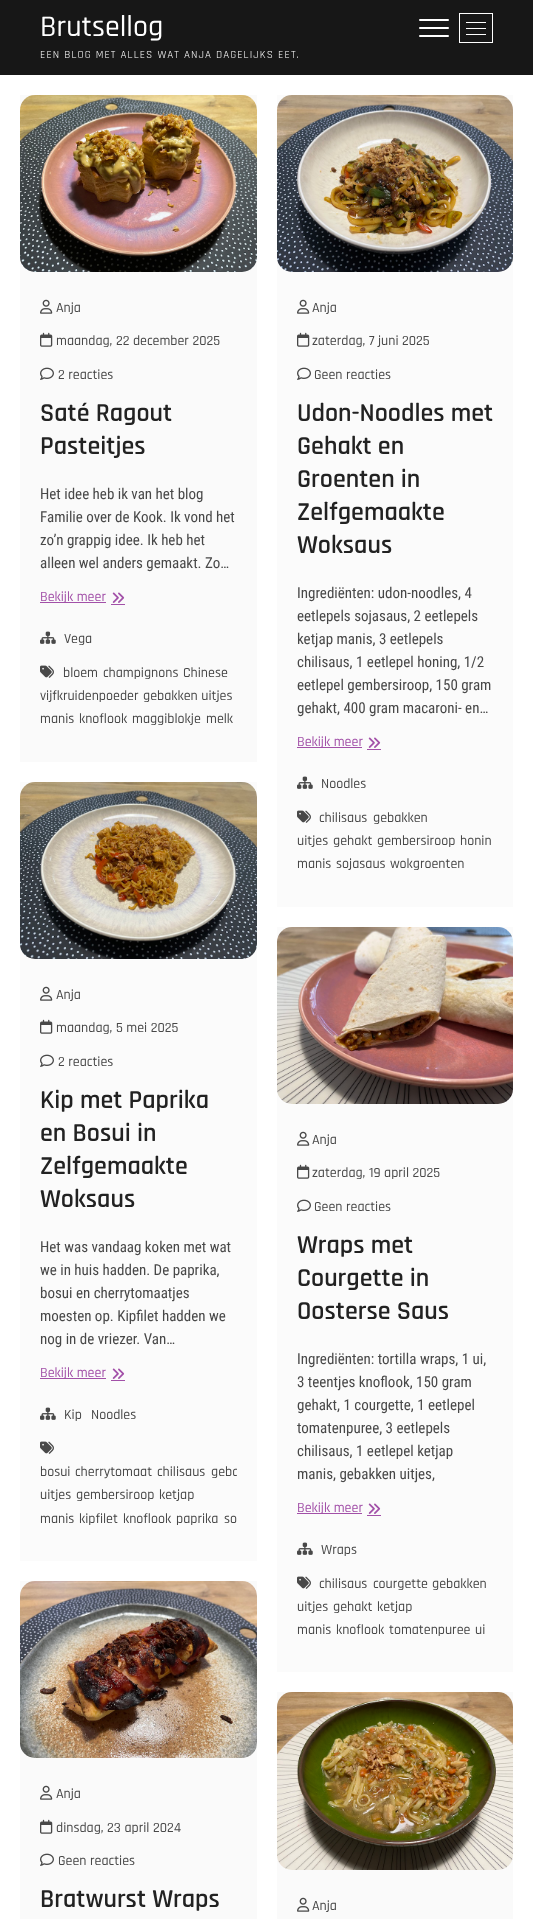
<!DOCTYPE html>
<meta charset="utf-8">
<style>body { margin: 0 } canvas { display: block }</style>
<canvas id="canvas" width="533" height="1919"></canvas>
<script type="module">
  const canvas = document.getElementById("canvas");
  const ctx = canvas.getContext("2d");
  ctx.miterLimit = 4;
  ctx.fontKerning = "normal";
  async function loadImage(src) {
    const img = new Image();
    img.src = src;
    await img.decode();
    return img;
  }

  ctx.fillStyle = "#ffffff";
  ctx.fillRect(0, 0, 533, 1919);
  ctx.fillStyle = "#171717";
  ctx.fillRect(0, 0, 533, 75);
  ctx.font = "500 30px Rajdhani";
  ctx.fillStyle = "#ffffff";
  ctx.fillText("Brutsellog", 40, 36);
  ctx.letterSpacing = "1.1px";
  ctx.font = "11px Rajdhani";
  ctx.fillText("EEN BLOG MET ALLES WAT ANJA DAGELIJKS EET.", 40, 58);
  ctx.beginPath();
  ctx.roundRect(419, 27, 30, 2, 1);
  ctx.fill();
  ctx.beginPath();
  ctx.roundRect(419, 19, 30, 2, 1);
  ctx.fill();
  ctx.beginPath();
  ctx.roundRect(419, 35, 30, 2, 1);
  ctx.fill();
  ctx.strokeStyle = "#ffffff";
  ctx.strokeRect(459.5, 13.5, 33, 29);
  ctx.fillRect(466, 28, 20, 1);
  ctx.fillRect(466, 22, 20, 1);
  ctx.fillRect(466, 34, 20, 1);
  ctx.fillStyle = "#fafafa";
  ctx.fillRect(20, 95, 237, 667);
  ctx.drawImage(await loadImage("img1.png"), 20, 95, 237, 177);
  ctx.drawImage(await loadImage("img2.png"), 40, 299, 13, 15);
  ctx.letterSpacing = "0px";
  ctx.font = "500 14px Rajdhani";
  ctx.fillStyle = "#484848";
  ctx.fillText("Anja", 56, 312);
  ctx.drawImage(await loadImage("img3.png"), 40, 332, 13, 15);
  ctx.fillText("maandag, 22 december 2025", 56, 345);
  ctx.drawImage(await loadImage("img4.png"), 40, 367, 14, 13);
  ctx.fillText("2 reacties", 58, 379);
  ctx.font = "600 26px Rajdhani";
  ctx.fillStyle = "#222222";
  ctx.fillText("Saté Ragout", 40, 421);
  ctx.fillText("Pasteitjes", 40, 454);
  ctx.font = "15px Roboto Condensed";
  ctx.fillStyle = "#484848";
  ctx.fillText("Het idee heb ik van het blog", 40, 499);
  ctx.fillText("Familie over de Kook. Ik vond het", 40, 522);
  ctx.fillText("zo’n grappig idee. Ik heb het", 40, 545);
  ctx.fillText("alleen wel anders gemaakt. Zo…", 40, 568);
  ctx.fillStyle = "#a250a8";
  ctx.fillRect(40, 602, 66, 1);
  ctx.font = "500 14px Rajdhani";
  ctx.fillText("Bekijk meer", 40, 601);
  ctx.drawImage(await loadImage("img5.png"), 112, 592, 13, 11);
  ctx.fillRect(111, 604, 14, 1);
  ctx.drawImage(await loadImage("img6.png"), 40, 631, 16, 13);
  ctx.fillStyle = "#484848";
  ctx.fillText("Vega", 64, 643);
  ctx.drawImage(await loadImage("img7.png"), 40, 665, 14, 13);
  ctx.fillText("bloem", 63, 677);
  ctx.fillText("champignons", 103, 677);
  ctx.fillText("Chinese", 183, 677);
  ctx.fillText("vijfkruidenpoeder", 40, 700);
  ctx.fillText("gebakken uitjes", 143, 700);
  ctx.fillText("manis", 40, 723);
  ctx.fillText("knoflook", 79, 723);
  ctx.fillText("maggiblokje", 132, 723);
  ctx.fillText("melk", 206, 723);
  ctx.fillStyle = "#fbfbfb";
  ctx.fillRect(277, 95, 236, 812);
  ctx.drawImage(await loadImage("img8.png"), 277, 95, 236, 177);
  ctx.drawImage(await loadImage("img9.png"), 297, 299, 13, 15);
  ctx.fillStyle = "#484848";
  ctx.fillText("Anja", 312, 312);
  ctx.drawImage(await loadImage("img10.png"), 297, 332, 13, 15);
  ctx.fillText("zaterdag, 7 juni 2025", 312, 345);
  ctx.drawImage(await loadImage("img11.png"), 297, 367, 14, 13);
  ctx.fillText("Geen reacties", 314, 379);
  ctx.font = "600 26px Rajdhani";
  ctx.fillStyle = "#222222";
  ctx.fillText("Udon-Noodles met", 297, 421);
  ctx.fillText("Gehakt en", 297, 454);
  ctx.fillText("Groenten in", 297, 487);
  ctx.fillText("Zelfgemaakte", 297, 520);
  ctx.fillText("Woksaus", 297, 553);
  ctx.font = "15px Roboto Condensed";
  ctx.fillStyle = "#484848";
  ctx.fillText("Ingrediënten: udon-noodles, 4", 297, 598);
  ctx.fillText("eetlepels sojasaus, 2 eetlepels", 297, 621);
  ctx.fillText("ketjap manis, 3 eetlepels", 297, 644);
  ctx.fillText("chilisaus, 1 eetlepel honing, 1/2", 297, 667);
  ctx.fillText("eetlepel gembersiroop, 150 gram", 297, 690);
  ctx.fillText("gehakt, 400 gram macaroni- en…", 297, 713);
  ctx.fillStyle = "#a250a8";
  ctx.fillRect(297, 747, 65, 1);
  ctx.font = "500 14px Rajdhani";
  ctx.fillText("Bekijk meer", 297, 746);
  ctx.drawImage(await loadImage("img12.png"), 368, 737, 13, 11);
  ctx.fillRect(367, 749, 14, 1);
  ctx.drawImage(await loadImage("img13.png"), 297, 776, 16, 13);
  ctx.fillStyle = "#484848";
  ctx.fillText("Noodles", 321, 788);
  ctx.drawImage(await loadImage("img14.png"), 297, 810, 14, 13);
  ctx.fillText("chilisaus", 319, 822);
  ctx.fillText("gebakken", 373, 822);
  ctx.fillText("uitjes", 297, 845);
  ctx.fillText("gehakt", 333, 845);
  ctx.fillText("gembersiroop", 377, 845);
  ctx.fillText("honin", 460, 845);
  ctx.fillText("manis", 297, 868);
  ctx.fillText("sojasaus", 336, 868);
  ctx.fillText("wokgroenten", 390, 868);
  ctx.fillStyle = "#fbfbfb";
  ctx.fillRect(20, 782, 237, 779);
  ctx.drawImage(await loadImage("img15.png"), 20, 782, 237, 177);
  ctx.drawImage(await loadImage("img9.png"), 40, 986, 13, 15);
  ctx.fillStyle = "#484848";
  ctx.fillText("Anja", 56, 999);
  ctx.drawImage(await loadImage("img10.png"), 40, 1019, 13, 15);
  ctx.fillText("maandag, 5 mei 2025", 56, 1032);
  ctx.drawImage(await loadImage("img11.png"), 40, 1054, 14, 13);
  ctx.fillText("2 reacties", 58, 1066);
  ctx.font = "600 26px Rajdhani";
  ctx.fillStyle = "#222222";
  ctx.fillText("Kip met Paprika", 40, 1108);
  ctx.fillText("en Bosui in", 40, 1141);
  ctx.fillText("Zelfgemaakte", 40, 1174);
  ctx.fillText("Woksaus", 40, 1207);
  ctx.font = "15px Roboto Condensed";
  ctx.fillStyle = "#484848";
  ctx.fillText("Het was vandaag koken met wat", 40, 1252);
  ctx.fillText("we in huis hadden. De paprika,", 40, 1275);
  ctx.fillText("bosui en cherrytomaatjes", 40, 1298);
  ctx.fillText("moesten op. Kipfilet hadden we", 40, 1321);
  ctx.fillText("nog in de vriezer. Van…", 40, 1344);
  ctx.fillStyle = "#a250a8";
  ctx.fillRect(40, 1378, 66, 1);
  ctx.font = "500 14px Rajdhani";
  ctx.fillText("Bekijk meer", 40, 1377);
  ctx.drawImage(await loadImage("img12.png"), 112, 1368, 13, 11);
  ctx.fillRect(111, 1380, 14, 1);
  ctx.drawImage(await loadImage("img13.png"), 40, 1407, 16, 13);
  ctx.fillStyle = "#484848";
  ctx.fillText("Kip", 64, 1419);
  ctx.fillText("Noodles", 91, 1419);
  ctx.drawImage(await loadImage("img14.png"), 40, 1441, 14, 13);
  ctx.fillText("bosui", 40, 1476);
  ctx.fillText("cherrytomaat", 75, 1476);
  ctx.fillText("chilisaus", 157, 1476);
  ctx.save();
  ctx.beginPath();
  ctx.rect(40, 1404, 197, 137);
  ctx.clip();
  ctx.fillText("geba", 211, 1476);
  ctx.restore();
  ctx.fillText("uitjes", 40, 1499);
  ctx.fillText("gembersiroop", 76, 1499);
  ctx.fillText("ketjap", 159, 1499);
  ctx.fillText("manis", 40, 1523);
  ctx.fillText("kipfilet", 79, 1523);
  ctx.fillText("knoflook", 123, 1523);
  ctx.fillText("paprika", 176, 1523);
  ctx.fillText("so", 224, 1523);
  ctx.fillStyle = "#fbfbfb";
  ctx.fillRect(277, 927, 236, 745);
  ctx.drawImage(await loadImage("img16.png"), 277, 927, 236, 177);
  ctx.drawImage(await loadImage("img9.png"), 297, 1131, 13, 15);
  ctx.fillStyle = "#484848";
  ctx.fillText("Anja", 312, 1144);
  ctx.drawImage(await loadImage("img10.png"), 297, 1164, 13, 15);
  ctx.fillText("zaterdag, 19 april 2025", 312, 1177);
  ctx.drawImage(await loadImage("img11.png"), 297, 1199, 14, 13);
  ctx.fillText("Geen reacties", 314, 1211);
  ctx.font = "600 26px Rajdhani";
  ctx.fillStyle = "#222222";
  ctx.fillText("Wraps met", 297, 1253);
  ctx.fillText("Courgette in", 297, 1286);
  ctx.fillText("Oosterse Saus", 297, 1319);
  ctx.font = "15px Roboto Condensed";
  ctx.fillStyle = "#484848";
  ctx.fillText("Ingrediënten: tortilla wraps, 1 ui,", 297, 1364);
  ctx.fillText("3 teentjes knoflook, 150 gram", 297, 1387);
  ctx.fillText("gehakt, 1 courgette, 1 eetlepel", 297, 1410);
  ctx.fillText("tomatenpuree, 3 eetlepels", 297, 1433);
  ctx.fillText("chilisaus, 1 eetlepel ketjap", 297, 1456);
  ctx.fillText("manis, gebakken uitjes,", 297, 1479);
  ctx.fillStyle = "#a250a8";
  ctx.fillRect(297, 1513, 65, 1);
  ctx.font = "500 14px Rajdhani";
  ctx.fillText("Bekijk meer", 297, 1512);
  ctx.drawImage(await loadImage("img12.png"), 368, 1503, 13, 11);
  ctx.fillRect(367, 1515, 14, 1);
  ctx.drawImage(await loadImage("img13.png"), 297, 1542, 16, 13);
  ctx.fillStyle = "#484848";
  ctx.fillText("Wraps", 321, 1554);
  ctx.drawImage(await loadImage("img14.png"), 297, 1576, 14, 13);
  ctx.fillText("chilisaus", 319, 1588);
  ctx.fillText("courgette", 373, 1588);
  ctx.fillText("gebakken", 432, 1588);
  ctx.fillText("uitjes", 297, 1611);
  ctx.fillText("gehakt", 333, 1611);
  ctx.fillText("ketjap", 377, 1611);
  ctx.fillText("manis", 297, 1634);
  ctx.fillText("knoflook", 336, 1634);
  ctx.fillText("tomatenpuree", 389, 1634);
  ctx.fillText("ui", 475, 1634);
  ctx.fillStyle = "#fafafa";
  ctx.fillRect(20, 1581, 237, 338);
  ctx.drawImage(await loadImage("img17.png"), 20, 1581, 237, 177);
  ctx.drawImage(await loadImage("img2.png"), 40, 1785, 13, 15);
  ctx.fillStyle = "#484848";
  ctx.fillText("Anja", 56, 1798);
  ctx.drawImage(await loadImage("img3.png"), 40, 1819, 13, 15);
  ctx.fillText("dinsdag, 23 april 2024", 56, 1832);
  ctx.drawImage(await loadImage("img4.png"), 40, 1853, 14, 13);
  ctx.fillText("Geen reacties", 58, 1865);
  ctx.font = "600 26px Rajdhani";
  ctx.fillStyle = "#222222";
  ctx.fillText("Bratwurst Wraps", 40, 1907);
  ctx.fillStyle = "#fafafa";
  ctx.fillRect(277, 1692, 236, 227);
  ctx.drawImage(await loadImage("img18.png"), 277, 1692, 236, 178);
  ctx.drawImage(await loadImage("img2.png"), 297, 1897, 13, 15);
  ctx.font = "500 14px Rajdhani";
  ctx.fillStyle = "#484848";
  ctx.fillText("Anja", 312, 1910);
</script>
